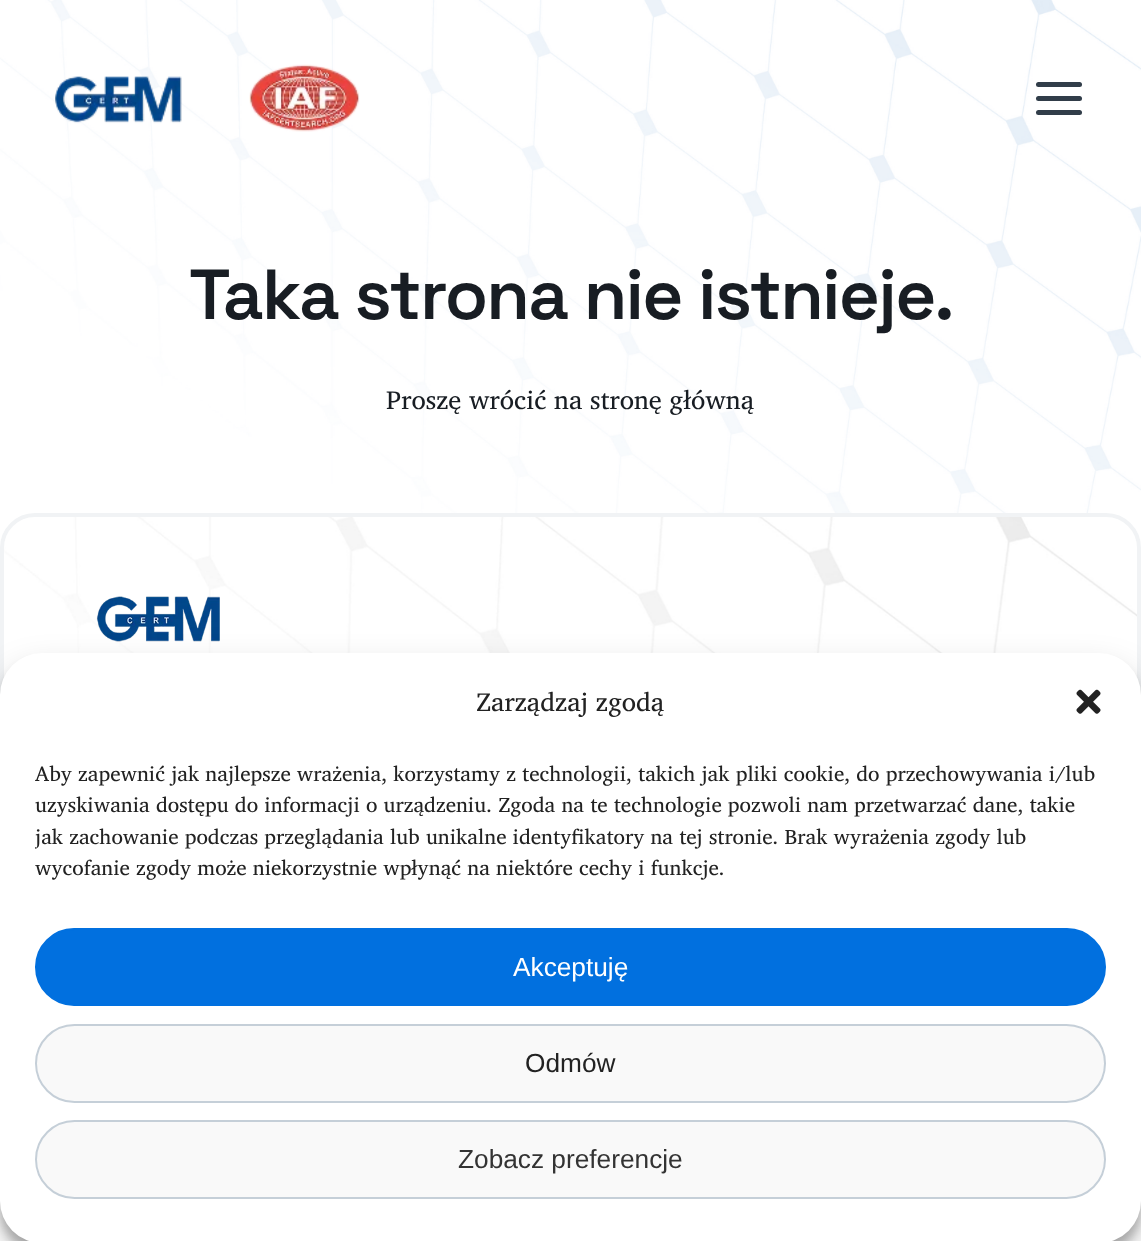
<!DOCTYPE html>
<meta charset="utf-8">
<style>body { margin: 0 } canvas { display: block }</style>
<canvas id="canvas" width="1141" height="1241"></canvas>
<script type="module">
  const canvas = document.getElementById("canvas");
  const ctx = canvas.getContext("2d");
  ctx.miterLimit = 4;
  ctx.fontKerning = "normal";
  async function loadImage(src) {
    const img = new Image();
    img.src = src;
    await img.decode();
    return img;
  }

  ctx.fillStyle = "#ffffff";
  ctx.fillRect(0, 0, 1141, 1241);
  ctx.drawImage(await loadImage("img1.png"), 0, 0, 1141, 548);
  ctx.drawImage(await loadImage("img2.png"), 55, 64, 305, 68);
  ctx.fillStyle = "#313d49";
  ctx.beginPath();
  ctx.roundRect(1036, 82, 46, 5, 2.5);
  ctx.fill();
  ctx.beginPath();
  ctx.roundRect(1036, 96, 46, 5, 2.5);
  ctx.fill();
  ctx.beginPath();
  ctx.roundRect(1036, 110, 46, 5, 2.5);
  ctx.fill();
  ctx.letterSpacing = "-1.75px";
  ctx.font = "600 70.9px Space Grotesk";
  ctx.fillStyle = "#181d23";
  ctx.fillText("Taka strona nie istnieje.", 189, 319);
  ctx.letterSpacing = "0px";
  ctx.font = "26.25px Charis SIL";
  ctx.fillText("Proszę wrócić na stronę główną", 386, 409);
  ctx.drawImage(await loadImage("img3.png"), 1, 516, 1140, 162);
  ctx.beginPath();
  ctx.roundRect(2, 515, 1137, 454, 33);
  ctx.strokeStyle = "#f1f3f5";
  ctx.lineWidth = 4;
  ctx.stroke();
  ctx.drawImage(await loadImage("img4.png"), 96, 596, 124, 46);
  ctx.fillStyle = "rgba(0, 0, 0, 0.23)";
  ctx.filter = "blur(5px)";
  ctx.beginPath();
  ctx.roundRect(0, 663, 1141, 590, 42);
  ctx.fill();
  ctx.filter = "none";
  ctx.fillStyle = "rgba(0, 0, 0, 0.19)";
  ctx.filter = "blur(17.5px)";
  ctx.beginPath();
  ctx.roundRect(0, 670, 1141, 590, 42);
  ctx.fill();
  ctx.filter = "none";
  ctx.fillStyle = "#ffffff";
  ctx.beginPath();
  ctx.roundRect(0, 653, 1141, 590, 42);
  ctx.fill();
  ctx.fillStyle = "#222222";
  ctx.fillText("Zarządzaj zgodą", 476, 711);
  ctx.drawImage(await loadImage("img5.png"), 1076, 689, 25, 25);
  ctx.font = "21px Charis SIL";
  ctx.fillText("Aby zapewnić jak najlepsze wrażenia, korzystamy z technologii, takich jak pliki cookie, do przechowywania i/lub", 35, 781);
  ctx.fillText("uzyskiwania dostępu do informacji o urządzeniu. Zgoda na te technologie pozwoli nam przetwarzać dane, takie", 35, 812);
  ctx.save();
  ctx.beginPath();
  ctx.rect(35, 758, 1071, 135);
  ctx.clip();
  ctx.fillText("jak zachowanie podczas przeglądania lub unikalne identyfikatory na tej stronie. Brak wyrażenia zgody lub", 35, 844);
  ctx.restore();
  ctx.fillText("wycofanie zgody może niekorzystnie wpłynąć na niektóre cechy i funkcje.", 35, 875);
  ctx.fillStyle = "#0170df";
  ctx.beginPath();
  ctx.roundRect(36, 929, 1069, 76, 38);
  ctx.fill();
  ctx.strokeStyle = "#0170df";
  ctx.lineWidth = 2;
  ctx.stroke();
  ctx.font = "26.25px Liberation Sans";
  ctx.fillStyle = "#ffffff";
  ctx.fillText("Akceptuję", 513, 976);
  ctx.fillStyle = "#f9f9f9";
  ctx.beginPath();
  ctx.roundRect(36, 1025, 1069, 77, 38.5);
  ctx.fill();
  ctx.strokeStyle = "#c5cfd8";
  ctx.stroke();
  ctx.fillStyle = "#222222";
  ctx.fillText("Odmów", 525, 1072);
  ctx.fillStyle = "#f9f9f9";
  ctx.beginPath();
  ctx.roundRect(36, 1121, 1069, 77, 38.5);
  ctx.fill();
  ctx.stroke();
  ctx.fillStyle = "#333333";
  ctx.fillText("Zobacz preferencje", 458, 1168);
</script>
